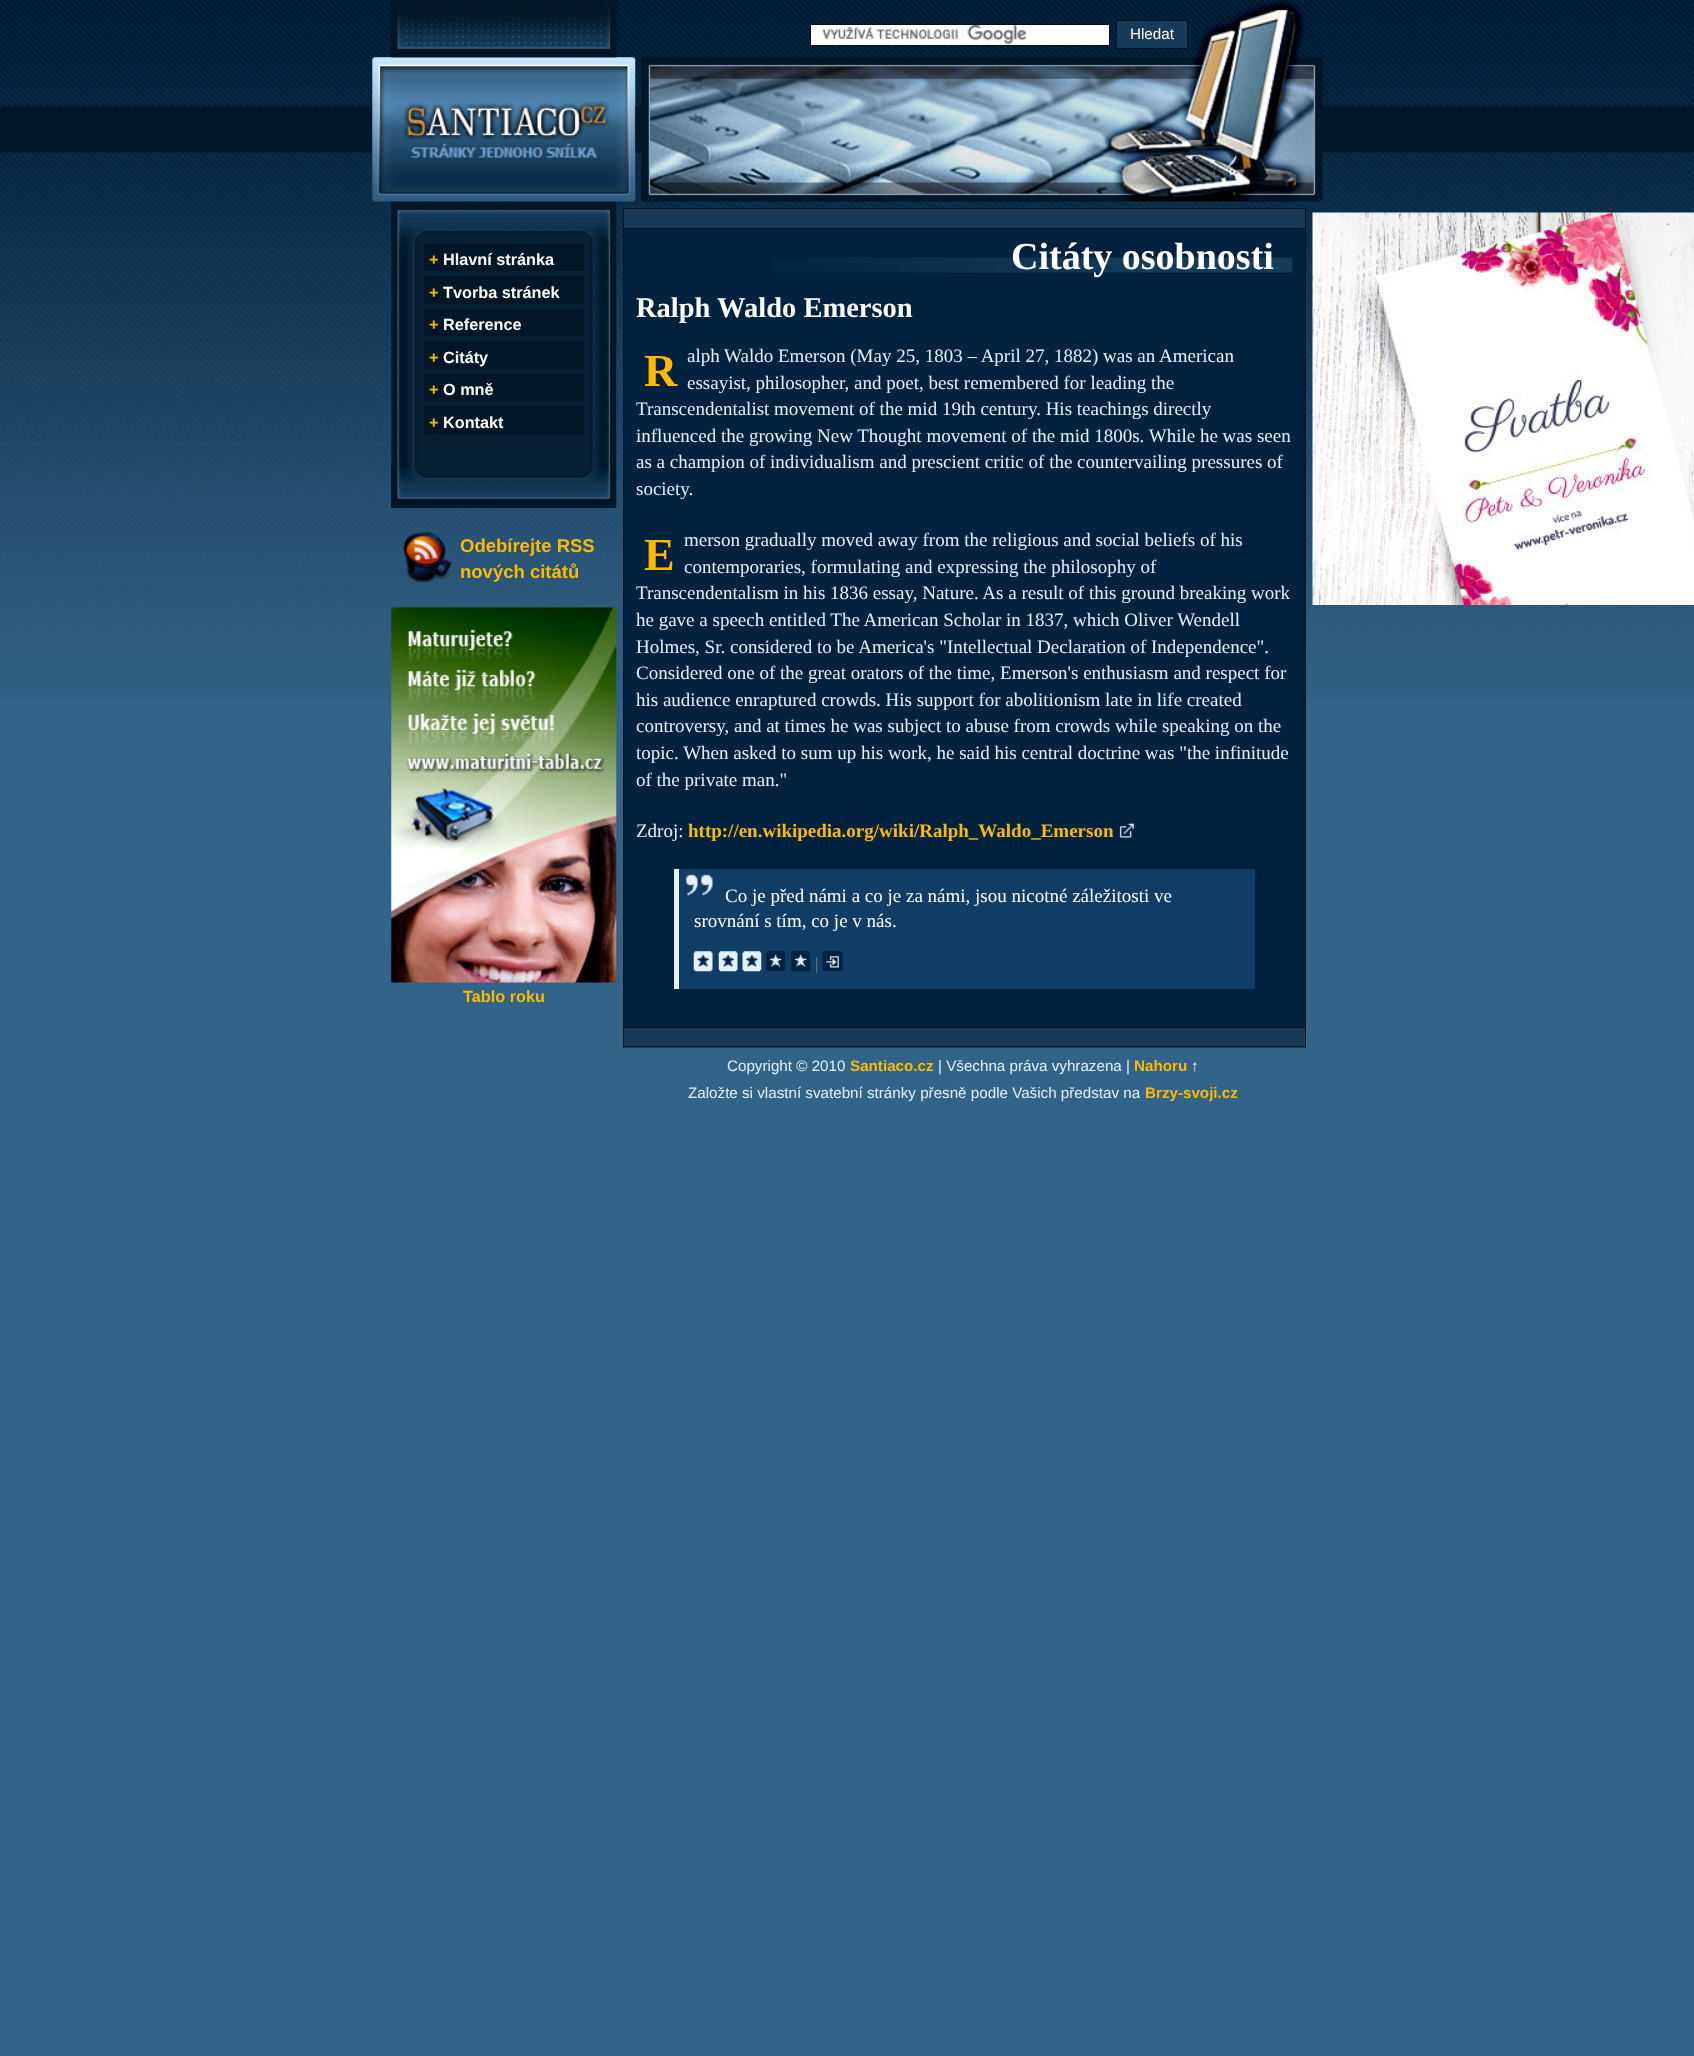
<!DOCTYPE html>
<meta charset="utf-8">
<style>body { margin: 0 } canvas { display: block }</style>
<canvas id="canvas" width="1694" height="2056"></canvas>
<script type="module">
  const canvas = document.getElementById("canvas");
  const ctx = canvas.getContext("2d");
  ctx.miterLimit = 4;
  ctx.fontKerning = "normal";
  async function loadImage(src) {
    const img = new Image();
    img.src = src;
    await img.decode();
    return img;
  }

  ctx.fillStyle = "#326389";
  ctx.fillRect(0, 0, 1694, 2056);
  ctx.drawImage(await loadImage("img1.png"), 0, 0, 1694, 700);
  ctx.fillStyle = "#072036";
  ctx.fillRect(391, 201, 225, 43);
  ctx.drawImage(await loadImage("img5.png"), 391, 201, 226, 43);
  ctx.drawImage(await loadImage("img2.png"), 372, 0, 951, 202);
  ctx.drawImage(await loadImage("img3.png"), 372, 0, 951, 202);
  ctx.fillStyle = "#ffffff";
  ctx.fillRect(811, 25, 298, 20);
  ctx.drawImage(await loadImage("img4.png"), 822, 25, 205, 19);
  ctx.strokeStyle = "#010f1a";
  ctx.strokeRect(810.5, 24.5, 299, 21);
  ctx.fillStyle = "#163a59";
  ctx.beginPath();
  ctx.rect(1116.5, 20.5, 71, 28);
  ctx.fill();
  ctx.stroke();
  ctx.font = "15.2px Liberation Sans";
  ctx.fillStyle = "#ffffff";
  ctx.fillText("Hledat", 1130, 39);
  ctx.drawImage(await loadImage("img6.png"), 391, 244, 226, 221);
  ctx.fillStyle = "#011728";
  ctx.fillRect(424, 244, 160, 27);
  ctx.font = "bold 16.25px Liberation Sans";
  ctx.fillStyle = "#ffba00";
  ctx.fillText("+", 429, 265);
  ctx.fillStyle = "#ffffff";
  ctx.fillText("Hlavní stránka", 443, 265);
  ctx.fillStyle = "#011728";
  ctx.fillRect(424, 276, 160, 28);
  ctx.fillStyle = "#ffba00";
  ctx.fillText("+", 429, 298);
  ctx.fillStyle = "#ffffff";
  ctx.fillText("Tvorba stránek", 443, 298);
  ctx.fillStyle = "#011728";
  ctx.fillRect(424, 309, 160, 27);
  ctx.fillStyle = "#ffba00";
  ctx.fillText("+", 429, 330);
  ctx.fillStyle = "#ffffff";
  ctx.fillText("Reference", 443, 330);
  ctx.fillStyle = "#011728";
  ctx.fillRect(424, 341, 160, 28);
  ctx.fillStyle = "#ffba00";
  ctx.fillText("+", 429, 363);
  ctx.fillStyle = "#ffffff";
  ctx.fillText("Citáty", 443, 363);
  ctx.fillStyle = "#011728";
  ctx.fillRect(424, 374, 160, 27);
  ctx.fillStyle = "#ffba00";
  ctx.fillText("+", 429, 395);
  ctx.fillStyle = "#ffffff";
  ctx.fillText("O mně", 443, 395);
  ctx.fillStyle = "#011728";
  ctx.fillRect(424, 406, 160, 28);
  ctx.fillStyle = "#ffba00";
  ctx.fillText("+", 429, 428);
  ctx.fillStyle = "#ffffff";
  ctx.fillText("Kontakt", 443, 428);
  ctx.fillStyle = "#072036";
  ctx.fillRect(391, 465, 225, 43);
  ctx.drawImage(await loadImage("img7.png"), 391, 465, 226, 43);
  ctx.drawImage(await loadImage("img8.png"), 403, 532, 49, 51);
  ctx.font = "bold 18.5px Liberation Sans";
  ctx.fillStyle = "#ffba00";
  ctx.fillText("Odebírejte RSS", 460, 552);
  ctx.fillText("nových citátů", 460, 578);
  ctx.drawImage(await loadImage("img9.png"), 391, 607, 226, 376);
  ctx.font = "bold 16.25px Liberation Sans";
  ctx.fillText("Tablo roku", 463, 1002);
  ctx.fillStyle = "#163a59";
  ctx.fillRect(624, 209, 681, 19);
  ctx.fillStyle = "#010f1a";
  ctx.fillRect(623, 208, 683, 1);
  ctx.fillRect(1305, 208, 1, 20);
  ctx.fillRect(623, 208, 1, 20);
  ctx.fillStyle = "#01223f";
  ctx.beginPath();
  ctx.rect(623.5, 228.5, 682, 799);
  ctx.fill();
  ctx.stroke();
  ctx.drawImage(await loadImage("img10.png"), 773, 257, 520, 16);
  ctx.font = "bold 38px Liberation Serif";
  ctx.fillStyle = "#ffffff";
  ctx.fillText("Citáty osobnosti", 1011, 269);
  ctx.font = "bold 28.5px Liberation Serif";
  ctx.fillText("Ralph Waldo Emerson", 636, 317);
  ctx.font = "bold 46px Liberation Serif";
  ctx.fillStyle = "#ffba00";
  ctx.fillText("R", 644, 386);
  ctx.font = "19px Liberation Serif";
  ctx.fillStyle = "#e2f2ff";
  ctx.fillText("alph Waldo Emerson (May 25, 1803 – April 27, 1882) was an American", 687, 362);
  ctx.fillText("essayist, philosopher, and poet, best remembered for leading the", 687, 389);
  ctx.fillText("Transcendentalist movement of the mid 19th century. His teachings directly", 636, 415);
  ctx.fillText("influenced the growing New Thought movement of the mid 1800s. While he was seen", 636, 442);
  ctx.fillText("as a champion of individualism and prescient critic of the countervailing pressures of", 636, 468);
  ctx.fillText("society.", 636, 495);
  ctx.font = "bold 46px Liberation Serif";
  ctx.fillStyle = "#ffba00";
  ctx.fillText("E", 644, 570);
  ctx.font = "19px Liberation Serif";
  ctx.fillStyle = "#e2f2ff";
  ctx.fillText("merson gradually moved away from the religious and social beliefs of his", 684, 546);
  ctx.fillText("contemporaries, formulating and expressing the philosophy of", 684, 573);
  ctx.fillText("Transcendentalism in his 1836 essay, Nature. As a result of this ground breaking work", 636, 599);
  ctx.fillText("he gave a speech entitled The American Scholar in 1837, which Oliver Wendell", 636, 626);
  ctx.fillText("Holmes, Sr. considered to be America's \"Intellectual Declaration of Independence\".", 636, 653);
  ctx.fillText("Considered one of the great orators of the time, Emerson's enthusiasm and respect for", 636, 679);
  ctx.fillText("his audience enraptured crowds. His support for abolitionism late in life created", 636, 706);
  ctx.fillText("controversy, and at times he was subject to abuse from crowds while speaking on the", 636, 732);
  ctx.fillText("topic. When asked to sum up his work, he said his central doctrine was \"the infinitude", 636, 759);
  ctx.fillText("of the private man.\"", 636, 786);
  ctx.fillText("Zdroj:", 636, 837);
  ctx.font = "bold 19px Liberation Serif";
  ctx.fillStyle = "#ffba00";
  ctx.fillText("http://en.wikipedia.org/wiki/Ralph_Waldo_Emerson", 688, 837);
  ctx.drawImage(await loadImage("img11.png"), 1119, 823, 15, 15);
  ctx.fillStyle = "#0f3d66";
  ctx.fillRect(679, 869, 576, 120);
  ctx.drawImage(await loadImage("img12.png"), 686, 874, 27, 22);
  ctx.fillStyle = "#e2f2ff";
  ctx.fillRect(674, 869, 5, 120);
  ctx.font = "19px Liberation Serif";
  ctx.fillStyle = "#ffffff";
  ctx.fillText("Co je před námi a co je za námi, jsou nicotné záležitosti ve", 725, 902);
  ctx.fillText("srovnání s tím, co je v nás.", 694, 927);
  ctx.drawImage(await loadImage("img13.png"), 693, 951, 20, 21);
  ctx.drawImage(await loadImage("img13.png"), 718, 951, 20, 21);
  ctx.drawImage(await loadImage("img14.png"), 742, 951, 20, 21);
  ctx.drawImage(await loadImage("img15.png"), 766, 951, 19, 21);
  ctx.drawImage(await loadImage("img15.png"), 791, 951, 19, 21);
  ctx.font = "17px Liberation Serif";
  ctx.fillStyle = "#808078";
  ctx.fillText("|", 815, 969);
  ctx.drawImage(await loadImage("img16.png"), 822, 951, 21, 21);
  ctx.fillStyle = "#163a59";
  ctx.fillRect(624, 1028, 681, 20);
  ctx.fillStyle = "#010f1a";
  ctx.fillRect(1305, 1028, 1, 20);
  ctx.fillRect(623, 1046, 683, 1);
  ctx.fillRect(623, 1028, 1, 20);
  ctx.font = "15.2px Liberation Sans";
  ctx.fillStyle = "#e2f2ff";
  ctx.fillText("Copyright © 2010", 727, 1071);
  ctx.font = "bold 15.2px Liberation Sans";
  ctx.fillStyle = "#ffba00";
  ctx.fillText("Santiaco.cz", 850, 1071);
  ctx.font = "15.2px Liberation Sans";
  ctx.fillStyle = "#e2f2ff";
  ctx.fillText("| Všechna práva vyhrazena |", 938, 1071);
  ctx.font = "bold 15.2px Liberation Sans";
  ctx.fillStyle = "#ffba00";
  ctx.fillText("Nahoru", 1134, 1071);
  ctx.font = "15.2px Liberation Sans";
  ctx.fillStyle = "#e2f2ff";
  ctx.fillText("↑", 1191, 1071);
  ctx.fillText("Založte si vlastní svatební stránky přesně podle Vašich představ na", 688, 1098);
  ctx.font = "bold 15.2px Liberation Sans";
  ctx.fillStyle = "#ffba00";
  ctx.fillText("Brzy-svoji.cz", 1145, 1098);
  ctx.drawImage(await loadImage("img17.png"), 1312, 212, 382, 393);
</script>
